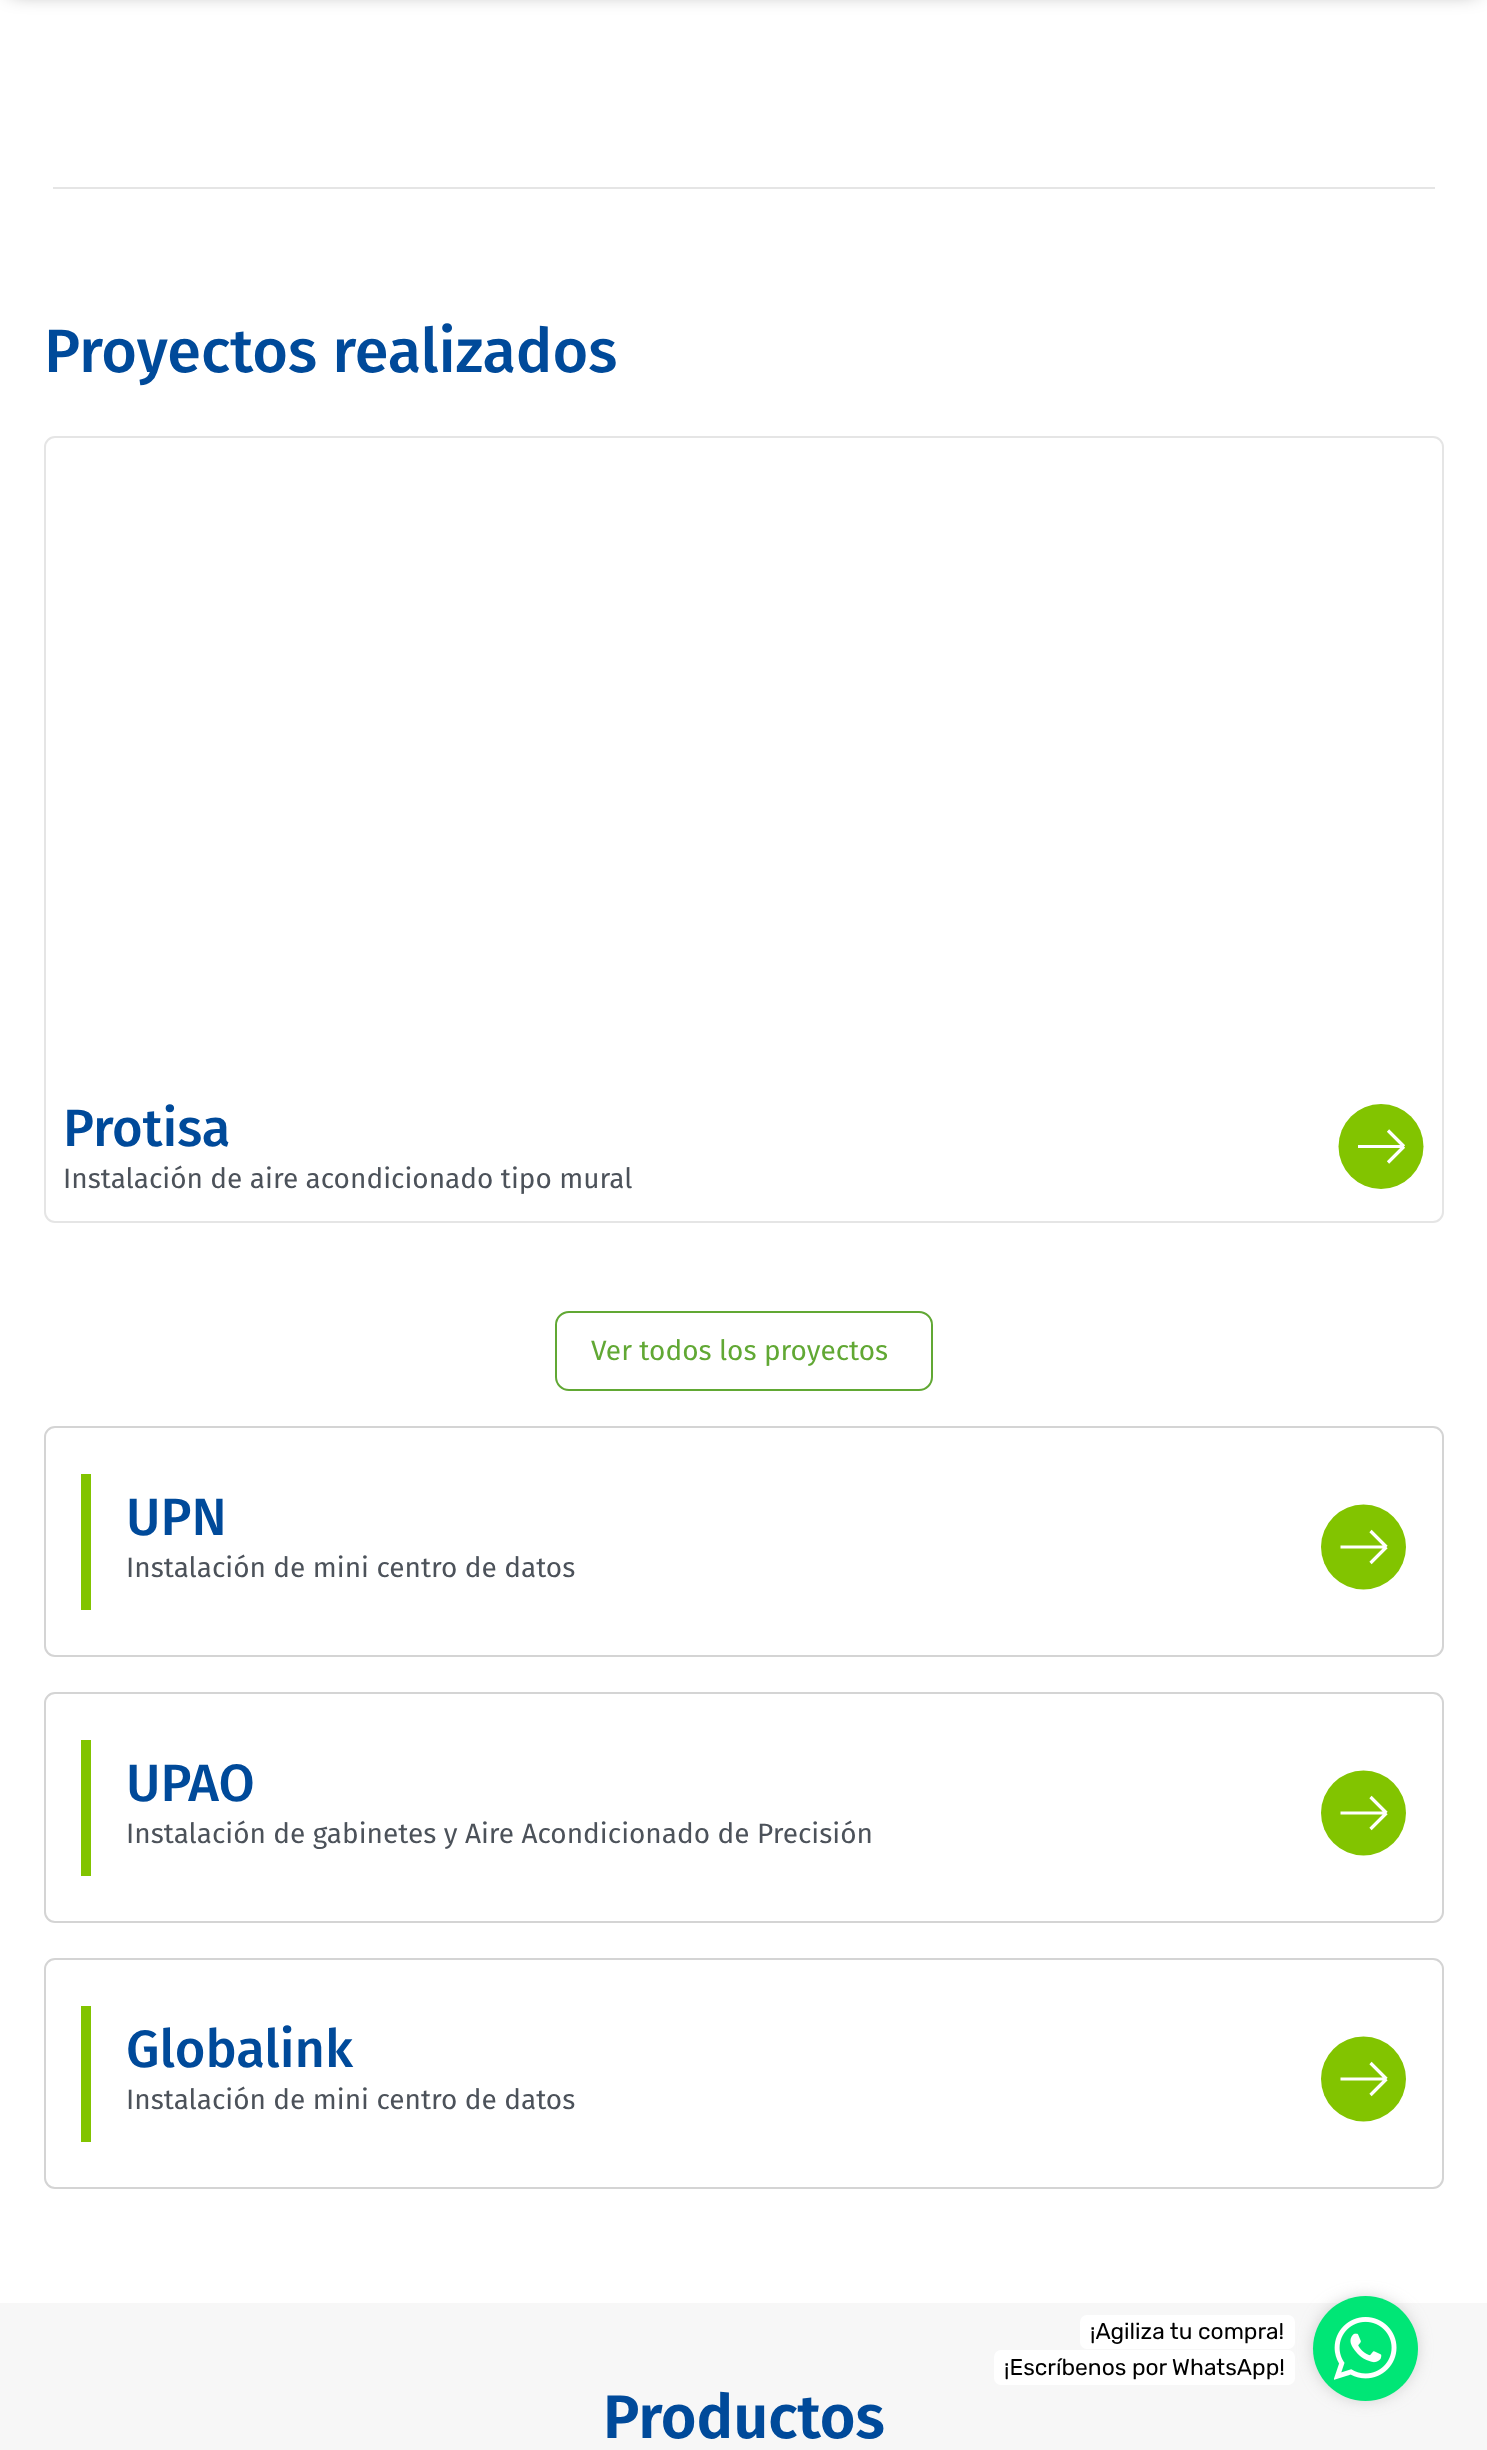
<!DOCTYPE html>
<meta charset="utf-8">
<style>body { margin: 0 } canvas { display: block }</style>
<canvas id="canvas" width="1487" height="2450"></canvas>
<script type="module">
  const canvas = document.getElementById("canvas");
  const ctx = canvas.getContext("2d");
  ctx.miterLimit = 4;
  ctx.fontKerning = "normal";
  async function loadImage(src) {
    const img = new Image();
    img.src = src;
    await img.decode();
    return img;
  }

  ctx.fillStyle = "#ffffff";
  ctx.fillRect(0, 0, 1487, 2450);
  ctx.fillStyle = "rgba(0, 0, 0, 0.5)";
  ctx.filter = "blur(10.5px)";
  ctx.beginPath();
  ctx.rect(11, -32, 1466, 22);
  ctx.fill();
  ctx.filter = "none";
  ctx.fillStyle = "#e5e5e5";
  ctx.fillRect(53, 187, 1382, 2);
  ctx.font = "500 61.25px Fira Sans";
  ctx.fillStyle = "#004a9a";
  ctx.fillText("Proyectos realizados", 44, 372);
  ctx.beginPath();
  ctx.roundRect(45, 437, 1398, 785, 10);
  ctx.strokeStyle = "#e5e5e5";
  ctx.lineWidth = 2;
  ctx.stroke();
  ctx.font = "500 52.5px Fira Sans";
  ctx.fillText("Protisa", 63, 1146);
  ctx.fillStyle = "#82c400";
  ctx.beginPath();
  ctx.arc(1381, 1146.5, 42.5, 0, Math.PI * 2);
  ctx.fill();
  ctx.beginPath();
  ctx.moveTo(1388, 1130.5);
  ctx.lineTo(1404, 1146.5);
  ctx.moveTo(1404, 1146.5);
  ctx.lineTo(1388, 1162.5);
  ctx.moveTo(1404, 1146.5);
  ctx.lineTo(1358, 1146.5);
  ctx.strokeStyle = "#ffffff";
  ctx.lineWidth = 3.2;
  ctx.stroke();
  ctx.font = "28px Fira Sans";
  ctx.fillStyle = "#4c525a";
  ctx.fillText("Instalación de aire acondicionado tipo mural", 63, 1188);
  ctx.beginPath();
  ctx.roundRect(556, 1312, 376, 78, 13);
  ctx.strokeStyle = "#61a834";
  ctx.lineWidth = 2;
  ctx.stroke();
  ctx.fillStyle = "#61a834";
  ctx.fillText("Ver todos los proyectos", 591, 1360);
  ctx.beginPath();
  ctx.roundRect(45, 1427, 1398, 229, 10);
  ctx.strokeStyle = "#d4d4d4";
  ctx.stroke();
  ctx.fillStyle = "#82c400";
  ctx.fillRect(81, 1474, 10, 136);
  ctx.font = "500 52.5px Fira Sans";
  ctx.fillStyle = "#004a9a";
  ctx.fillText("UPN", 126, 1535);
  ctx.fillStyle = "#82c400";
  ctx.beginPath();
  ctx.arc(1363.5, 1547, 42.5, 0, Math.PI * 2);
  ctx.fill();
  ctx.beginPath();
  ctx.moveTo(1370.5, 1531);
  ctx.lineTo(1386.5, 1547);
  ctx.moveTo(1386.5, 1547);
  ctx.lineTo(1370.5, 1563);
  ctx.moveTo(1386.5, 1547);
  ctx.lineTo(1340.5, 1547);
  ctx.strokeStyle = "#ffffff";
  ctx.lineWidth = 3.2;
  ctx.stroke();
  ctx.font = "28px Fira Sans";
  ctx.fillStyle = "#4c525a";
  ctx.fillText("Instalación de mini centro de datos", 126, 1577);
  ctx.beginPath();
  ctx.roundRect(45, 1693, 1398, 229, 10);
  ctx.strokeStyle = "#d4d4d4";
  ctx.lineWidth = 2;
  ctx.stroke();
  ctx.fillStyle = "#82c400";
  ctx.fillRect(81, 1740, 10, 136);
  ctx.font = "500 52.5px Fira Sans";
  ctx.fillStyle = "#004a9a";
  ctx.fillText("UPAO", 126, 1801);
  ctx.fillStyle = "#82c400";
  ctx.beginPath();
  ctx.arc(1363.5, 1813, 42.5, 0, Math.PI * 2);
  ctx.fill();
  ctx.beginPath();
  ctx.moveTo(1370.5, 1797);
  ctx.lineTo(1386.5, 1813);
  ctx.moveTo(1386.5, 1813);
  ctx.lineTo(1370.5, 1829);
  ctx.moveTo(1386.5, 1813);
  ctx.lineTo(1340.5, 1813);
  ctx.strokeStyle = "#ffffff";
  ctx.lineWidth = 3.2;
  ctx.stroke();
  ctx.font = "28px Fira Sans";
  ctx.fillStyle = "#4c525a";
  ctx.fillText("Instalación de gabinetes y Aire Acondicionado de Precisión", 126, 1843);
  ctx.beginPath();
  ctx.roundRect(45, 1959, 1398, 229, 10);
  ctx.strokeStyle = "#d4d4d4";
  ctx.lineWidth = 2;
  ctx.stroke();
  ctx.fillStyle = "#82c400";
  ctx.fillRect(81, 2006, 10, 136);
  ctx.font = "500 52.5px Fira Sans";
  ctx.fillStyle = "#004a9a";
  ctx.fillText("Globalink", 126, 2067);
  ctx.fillStyle = "#82c400";
  ctx.beginPath();
  ctx.arc(1363.5, 2079, 42.5, 0, Math.PI * 2);
  ctx.fill();
  ctx.beginPath();
  ctx.moveTo(1370.5, 2063);
  ctx.lineTo(1386.5, 2079);
  ctx.moveTo(1386.5, 2079);
  ctx.lineTo(1370.5, 2095);
  ctx.moveTo(1386.5, 2079);
  ctx.lineTo(1340.5, 2079);
  ctx.strokeStyle = "#ffffff";
  ctx.lineWidth = 3.2;
  ctx.stroke();
  ctx.font = "28px Fira Sans";
  ctx.fillStyle = "#4c525a";
  ctx.fillText("Instalación de mini centro de datos", 126, 2109);
  ctx.fillStyle = "#f7f7f7";
  ctx.fillRect(0, 2303, 1487, 147);
  ctx.font = "600 61.25px Fira Sans";
  ctx.fillStyle = "#004a9a";
  ctx.fillText("Productos", 603, 2438);
  ctx.fillStyle = "#ffffff";
  ctx.beginPath();
  ctx.roundRect(1080, 2315, 215, 34, 7);
  ctx.fill();
  ctx.font = "300 22.75px Rubik";
  ctx.fillStyle = "#000000";
  ctx.fillText("¡Agiliza tu compra!", 1090, 2339);
  ctx.fillStyle = "#ffffff";
  ctx.beginPath();
  ctx.roundRect(994, 2350, 301, 35, 7);
  ctx.fill();
  ctx.fillStyle = "#000000";
  ctx.fillText("¡Escríbenos por WhatsApp!", 1004, 2375);
  ctx.fillStyle = "#8d8d8d";
  ctx.filter = "blur(10.5px)";
  ctx.beginPath();
  ctx.roundRect(1321, 2305, 88, 87, 43.5);
  ctx.fill();
  ctx.filter = "none";
  ctx.fillStyle = "#00e676";
  ctx.beginPath();
  ctx.arc(1365.5, 2348.5, 52.5, 0, Math.PI * 2);
  ctx.fill();
  ctx.drawImage(await loadImage("img1.png"), 1334, 2317, 63, 63);
</script>
